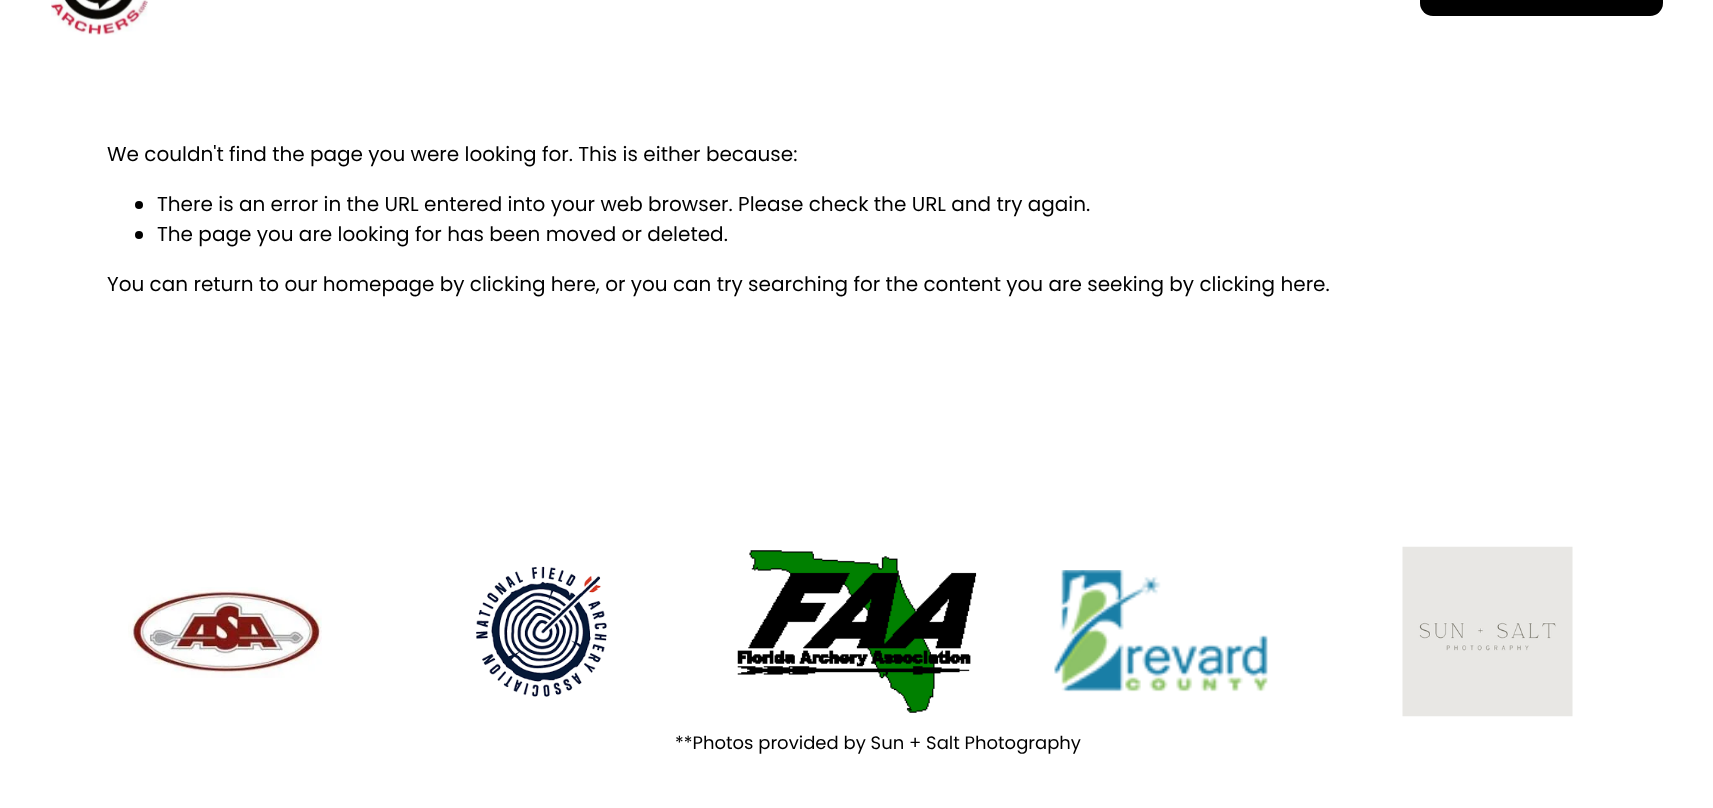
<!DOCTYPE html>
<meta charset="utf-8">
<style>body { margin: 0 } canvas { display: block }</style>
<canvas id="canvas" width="1713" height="808"></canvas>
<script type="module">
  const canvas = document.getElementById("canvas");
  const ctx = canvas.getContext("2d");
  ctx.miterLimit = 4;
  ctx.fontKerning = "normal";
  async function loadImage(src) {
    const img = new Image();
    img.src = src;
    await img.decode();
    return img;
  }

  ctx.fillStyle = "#ffffff";
  ctx.fillRect(0, 0, 1713, 808);
  ctx.drawImage(await loadImage("img1.png"), 51, 0, 97, 35);
  ctx.fillStyle = "#000000";
  ctx.beginPath();
  ctx.roundRect(1420, -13, 243, 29, 13);
  ctx.fill();
  ctx.font = "20px Poppins";
  ctx.fillText("We couldn't find the page you were looking for. This is either because:", 107, 161);
  ctx.beginPath();
  ctx.arc(139, 205, 4, 0, Math.PI * 2);
  ctx.fill();
  ctx.fillText("There is an error in the URL entered into your web browser. Please check the URL and try again.", 157, 211);
  ctx.beginPath();
  ctx.arc(139, 235, 4, 0, Math.PI * 2);
  ctx.fill();
  ctx.fillText("The page you are looking for has been moved or deleted.", 157, 241);
  ctx.fillText("You can return to our homepage by clicking here, or you can try searching for the content you are seeking by clicking here.", 107, 291);
  ctx.drawImage(await loadImage("img2.png"), 128, 587, 194, 91);
  ctx.drawImage(await loadImage("img3.png"), 476, 566, 131, 131);
  ctx.drawImage(await loadImage("img4.png"), 737, 550, 240, 163);
  ctx.drawImage(await loadImage("img5.png"), 1054, 570, 214, 122);
  ctx.drawImage(await loadImage("img6.png"), 1402, 546, 171, 171);
  ctx.font = "18px Poppins";
  ctx.fillText("**Photos provided by Sun + Salt Photography", 675, 749);
</script>
